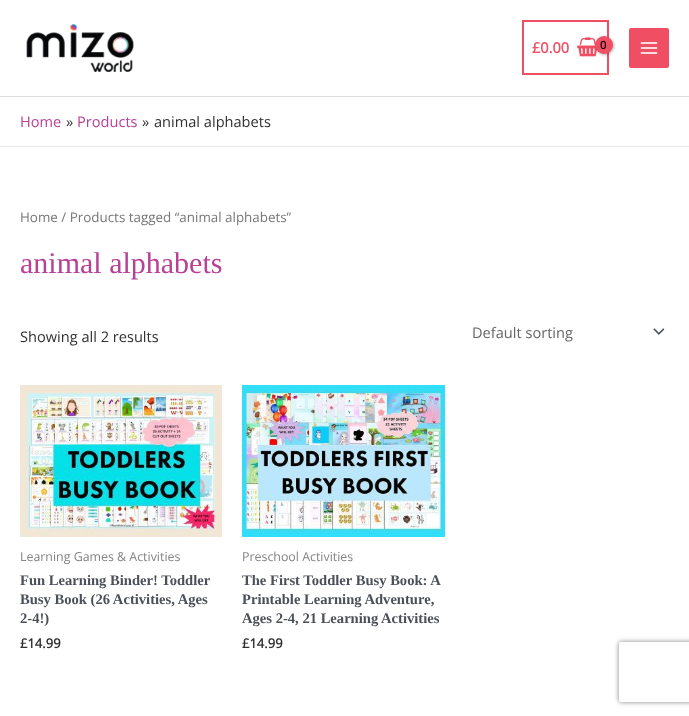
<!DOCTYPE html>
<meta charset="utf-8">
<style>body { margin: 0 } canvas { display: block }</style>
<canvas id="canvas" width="689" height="716"></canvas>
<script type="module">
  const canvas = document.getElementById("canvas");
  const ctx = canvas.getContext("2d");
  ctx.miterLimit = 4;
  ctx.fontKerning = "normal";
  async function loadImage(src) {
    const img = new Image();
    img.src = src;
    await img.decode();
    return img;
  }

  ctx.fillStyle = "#ffffff";
  ctx.fillRect(0, 0, 689, 716);
  ctx.fillStyle = "#dddddd";
  ctx.fillRect(0, 96, 689, 1);
  ctx.drawImage(await loadImage("img1.png"), 26, 24, 108, 48);
  ctx.strokeStyle = "#ef4e63";
  ctx.lineWidth = 2;
  ctx.strokeRect(523, 21, 85, 53);
  ctx.font = "bold 14.6px Open Sans";
  ctx.fillStyle = "#ef4e63";
  ctx.fillText("£0.00", 532, 53);
  ctx.drawImage(await loadImage("img2.png"), 577, 37, 20, 20);
  ctx.fillStyle = "rgba(0, 0, 0, 0.3)";
  ctx.filter = "blur(1.5px)";
  ctx.beginPath();
  ctx.roundRect(596, 37, 18, 18, 9);
  ctx.fill();
  ctx.filter = "none";
  ctx.fillStyle = "#ef4e63";
  ctx.beginPath();
  ctx.arc(604, 45, 9, 0, Math.PI * 2);
  ctx.fill();
  ctx.font = "bold 11px Open Sans";
  ctx.fillStyle = "#000000";
  ctx.fillText("0", 600, 49);
  ctx.fillStyle = "#ef4e63";
  ctx.beginPath();
  ctx.roundRect(629, 28, 40, 40, 2);
  ctx.fill();
  ctx.drawImage(await loadImage("img3.png"), 640, 42, 18, 12);
  ctx.fillStyle = "#eaeaea";
  ctx.fillRect(0, 146, 689, 1);
  ctx.font = "14.6px Open Sans";
  ctx.fillStyle = "#b84196";
  ctx.fillText("Home", 20, 127);
  ctx.fillStyle = "#303030";
  ctx.fillText("»", 66, 127);
  ctx.fillStyle = "#b84196";
  ctx.fillText("Products", 77, 127);
  ctx.fillStyle = "#303030";
  ctx.fillText("»", 142, 127);
  ctx.fillText("animal alphabets", 154, 127);
  ctx.font = "13.4px Open Sans";
  ctx.fillStyle = "#777777";
  ctx.fillText("Home / Products tagged “animal alphabets”", 20, 222);
  ctx.font = "30px Liberation Serif";
  ctx.fillStyle = "#b84196";
  ctx.fillText("animal alphabets", 20, 273);
  ctx.font = "14.6px Open Sans";
  ctx.fillStyle = "#303030";
  ctx.fillText("Showing all 2 results", 20, 342);
  ctx.drawImage(await loadImage("img4.png"), 653, 328, 12, 7);
  ctx.fillStyle = "#666666";
  ctx.fillText("Default sorting", 472, 338);
  ctx.drawImage(await loadImage("img5.png"), 20, 385, 202, 152);
  ctx.font = "12.4px Open Sans";
  ctx.fillStyle = "#838383";
  ctx.fillText("Learning Games & Activities", 20, 561);
  ctx.font = "bold 14.6px Liberation Serif";
  ctx.fillStyle = "#4b4f58";
  ctx.fillText("Fun Learning Binder! Toddler", 20, 585);
  ctx.fillText("Busy Book (26 Activities, Ages", 20, 604);
  ctx.fillText("2-4!)", 20, 623);
  ctx.font = "bold 13px Open Sans";
  ctx.fillStyle = "#303030";
  ctx.fillText("£14.99", 20, 648);
  ctx.drawImage(await loadImage("img6.png"), 242, 385, 203, 152);
  ctx.font = "12.4px Open Sans";
  ctx.fillStyle = "#838383";
  ctx.fillText("Preschool Activities", 242, 561);
  ctx.font = "bold 14.6px Liberation Serif";
  ctx.fillStyle = "#4b4f58";
  ctx.fillText("The First Toddler Busy Book: A", 242, 585);
  ctx.fillText("Printable Learning Adventure,", 242, 604);
  ctx.fillText("Ages 2-4, 21 Learning Activities", 242, 623);
  ctx.font = "bold 13px Open Sans";
  ctx.fillStyle = "#303030";
  ctx.fillText("£14.99", 242, 648);
  ctx.save();
  ctx.beginPath();
  ctx.moveTo(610, 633);
  ctx.lineTo(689, 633);
  ctx.lineTo(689, 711);
  ctx.lineTo(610, 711);
  ctx.closePath();
  ctx.moveTo(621, 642);
  ctx.lineTo(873, 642);
  ctx.bezierCurveTo(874, 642, 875, 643, 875, 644);
  ctx.lineTo(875, 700);
  ctx.bezierCurveTo(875, 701, 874, 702, 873, 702);
  ctx.lineTo(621, 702);
  ctx.bezierCurveTo(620, 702, 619, 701, 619, 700);
  ctx.lineTo(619, 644);
  ctx.bezierCurveTo(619, 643, 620, 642, 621, 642);
  ctx.closePath();
  ctx.clip("evenodd");
  ctx.fillStyle = "#808080";
  ctx.filter = "blur(2.5px)";
  ctx.beginPath();
  ctx.roundRect(619, 642, 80, 60, 2);
  ctx.fill();
  ctx.filter = "none";
  ctx.restore();
</script>
